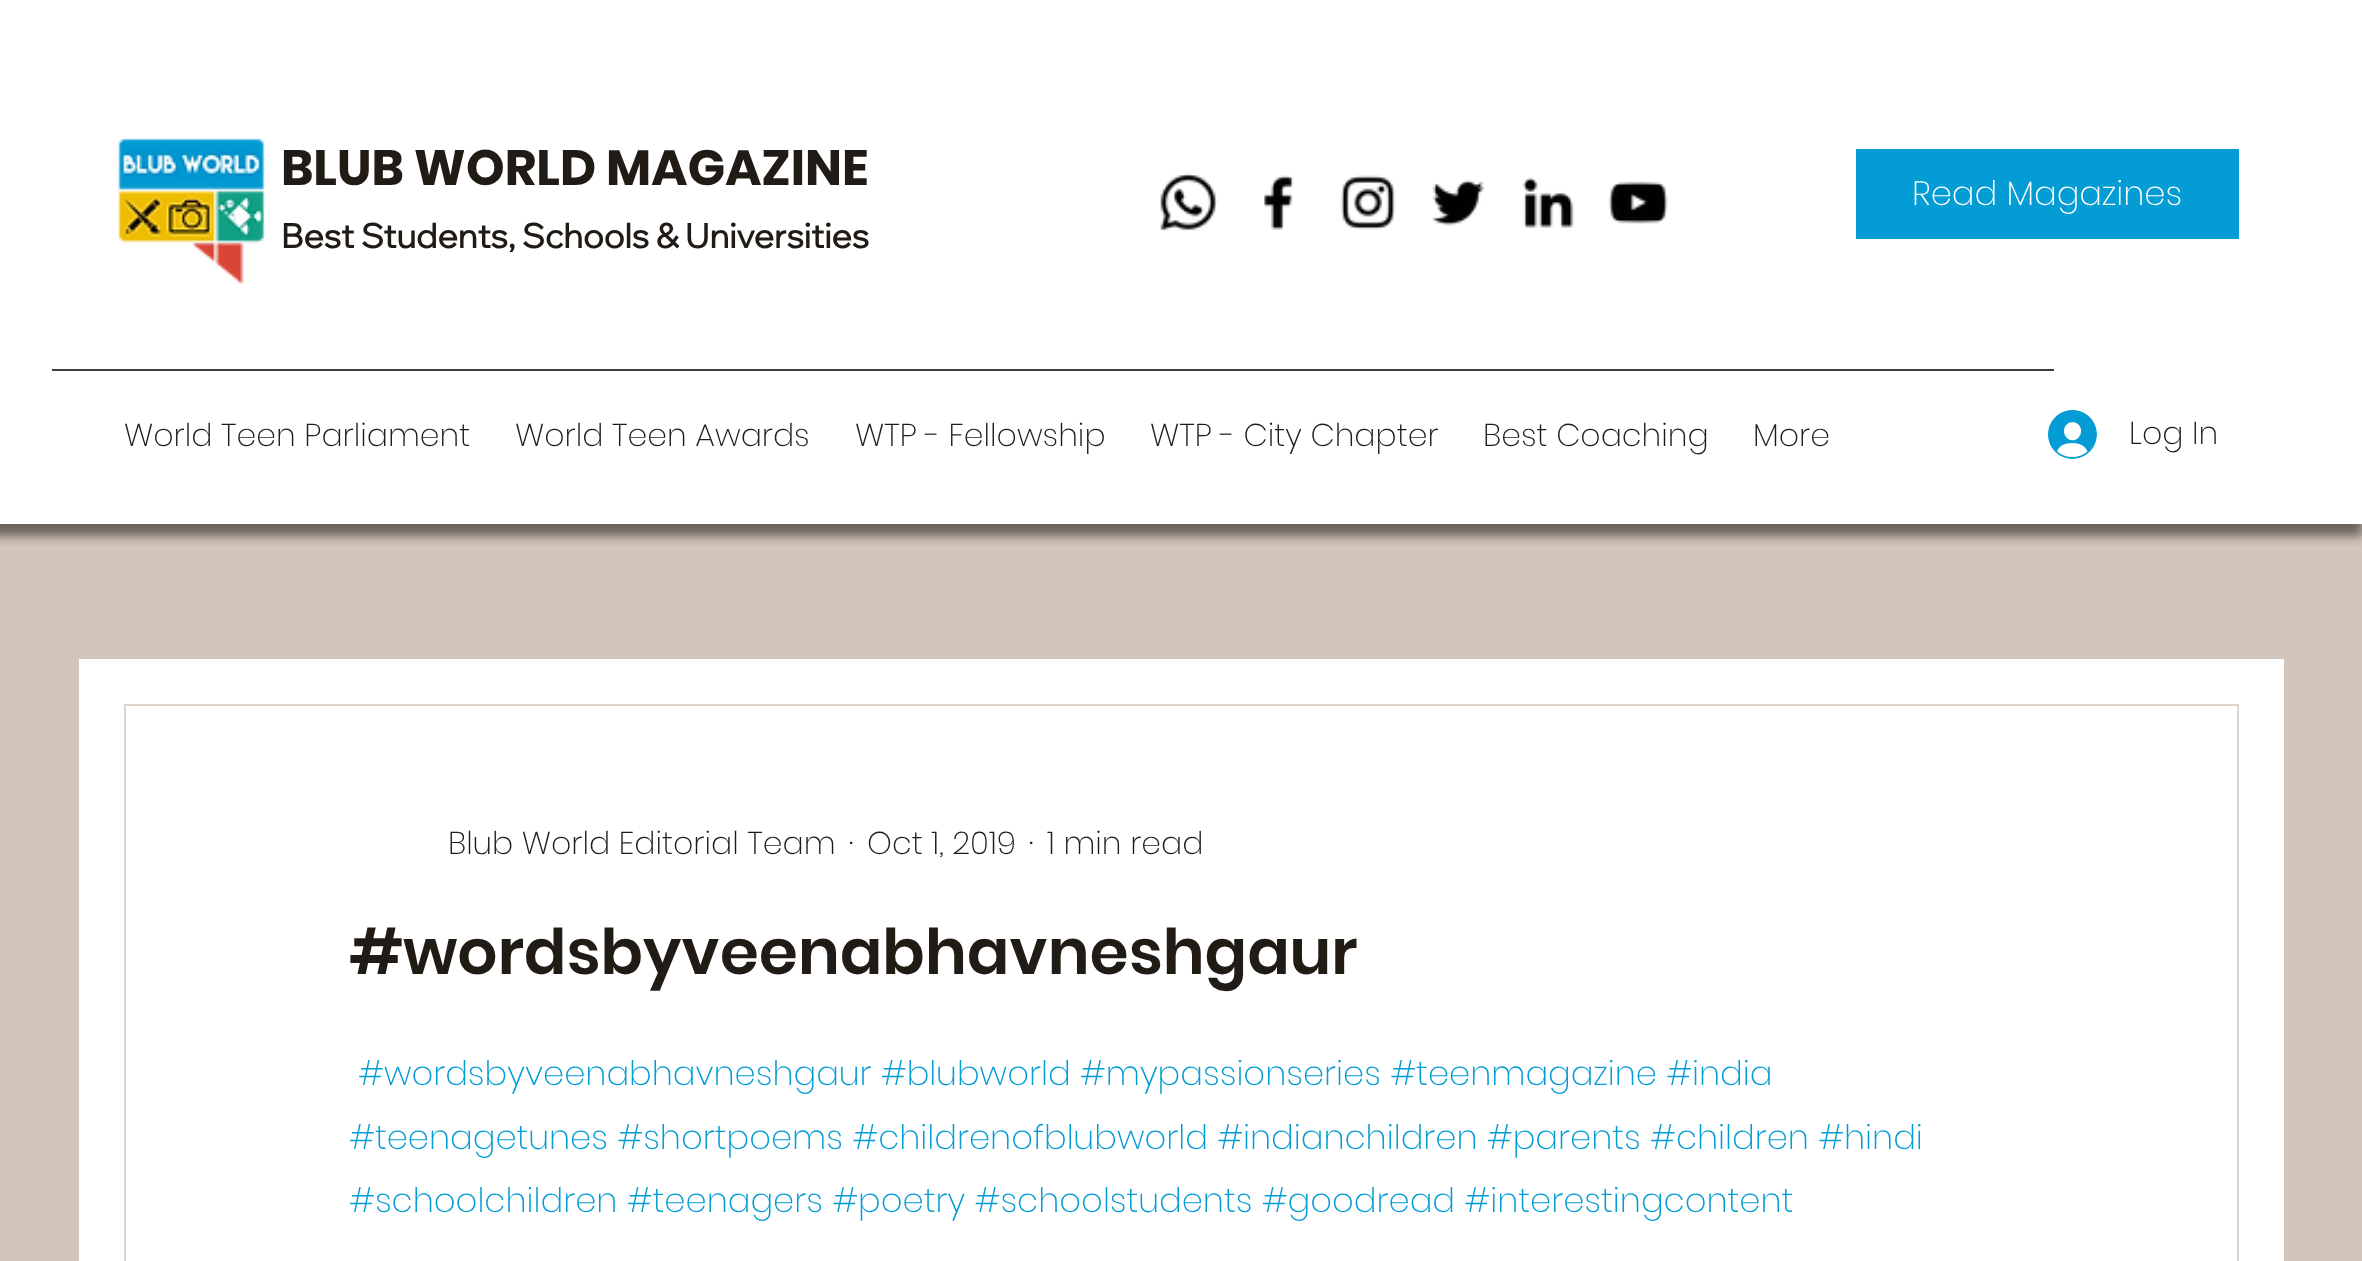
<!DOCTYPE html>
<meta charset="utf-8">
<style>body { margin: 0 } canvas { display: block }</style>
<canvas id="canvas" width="2362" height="1261"></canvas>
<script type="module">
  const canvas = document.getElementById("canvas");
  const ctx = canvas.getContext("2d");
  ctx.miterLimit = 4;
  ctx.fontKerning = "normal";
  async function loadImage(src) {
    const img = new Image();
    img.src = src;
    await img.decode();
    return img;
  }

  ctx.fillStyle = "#ffffff";
  ctx.fillRect(0, 0, 2362, 1261);
  ctx.fillStyle = "#d2c5bb";
  ctx.fillRect(0, 524, 2362, 737);
  ctx.save();
  ctx.beginPath();
  ctx.rect(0, 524, 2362, 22);
  ctx.clip();
  ctx.fillStyle = "rgba(0, 0, 0, 0.5)";
  ctx.filter = "blur(5.5px)";
  ctx.beginPath();
  ctx.rect(-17, -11, 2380, 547);
  ctx.fill();
  ctx.filter = "none";
  ctx.restore();
  ctx.drawImage(await loadImage("img1.png"), 117, 137, 149, 147);
  ctx.font = "bold 49.5px Poppins";
  ctx.fillStyle = "#211b16";
  ctx.fillText("BLUB WORLD MAGAZINE", 281, 185);
  ctx.font = "bold 33.75px Wix Madefor Display";
  ctx.fillText("Best Students, Schools & Universities", 281, 248);
  ctx.drawImage(await loadImage("img2.png"), 1160, 173, 58, 58);
  ctx.drawImage(await loadImage("img3.png"), 1264, 175, 30, 55);
  ctx.drawImage(await loadImage("img4.png"), 1340, 175, 56, 55);
  ctx.drawImage(await loadImage("img5.png"), 1432, 179, 53, 47);
  ctx.drawImage(await loadImage("img6.png"), 1522, 177, 52, 51);
  ctx.drawImage(await loadImage("img7.png"), 1608, 181, 60, 43);
  ctx.fillStyle = "#049cd4";
  ctx.fillRect(1856, 149, 383, 90);
  ctx.font = "200 33.75px Poppins";
  ctx.fillStyle = "#ffffff";
  ctx.fillText("Read Magazines", 1912, 205);
  ctx.fillStyle = "#423d39";
  ctx.fillRect(52, 369, 2002, 2);
  ctx.font = "200 31.5px Poppins";
  ctx.fillStyle = "#211b16";
  ctx.fillText("World Teen Parliament", 124, 446);
  ctx.fillText("World Teen Awards", 515, 446);
  ctx.fillText("WTP - Fellowship", 855, 446);
  ctx.fillText("WTP - City Chapter", 1150, 446);
  ctx.fillText("Best Coaching", 1483, 446);
  ctx.fillText("More", 1753, 446);
  ctx.drawImage(await loadImage("img8.png"), 2048, 410, 49, 49);
  ctx.fillText("Log In", 2129, 444);
  ctx.fillStyle = "#ffffff";
  ctx.fillRect(79, 659, 2205, 602);
  ctx.strokeStyle = "#ddd4cc";
  ctx.lineWidth = 2;
  ctx.strokeRect(125, 705, 2113, 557);
  ctx.fillStyle = "#211b16";
  ctx.fillText("Blub World Editorial Team", 448, 854);
  ctx.fillText("·", 849, 854);
  ctx.fillText("Oct 1, 2019", 867, 854);
  ctx.fillText("·", 1029, 854);
  ctx.fillText("1 min read", 1047, 854);
  ctx.font = "600 63px Poppins";
  ctx.fillText("#wordsbyveenabhavneshgaur", 349, 974);
  ctx.font = "200 33.75px Poppins";
  ctx.fillStyle = "#049cd4";
  ctx.fillText("#wordsbyveenabhavneshgaur #blubworld #mypassionseries #teenmagazine #india", 358, 1085);
  ctx.fillText("#teenagetunes #shortpoems #childrenofblubworld #indianchildren #parents #children #hindi", 349, 1149);
  ctx.fillText("#schoolchildren #teenagers #poetry #schoolstudents #goodread #interestingcontent", 349, 1212);
</script>
